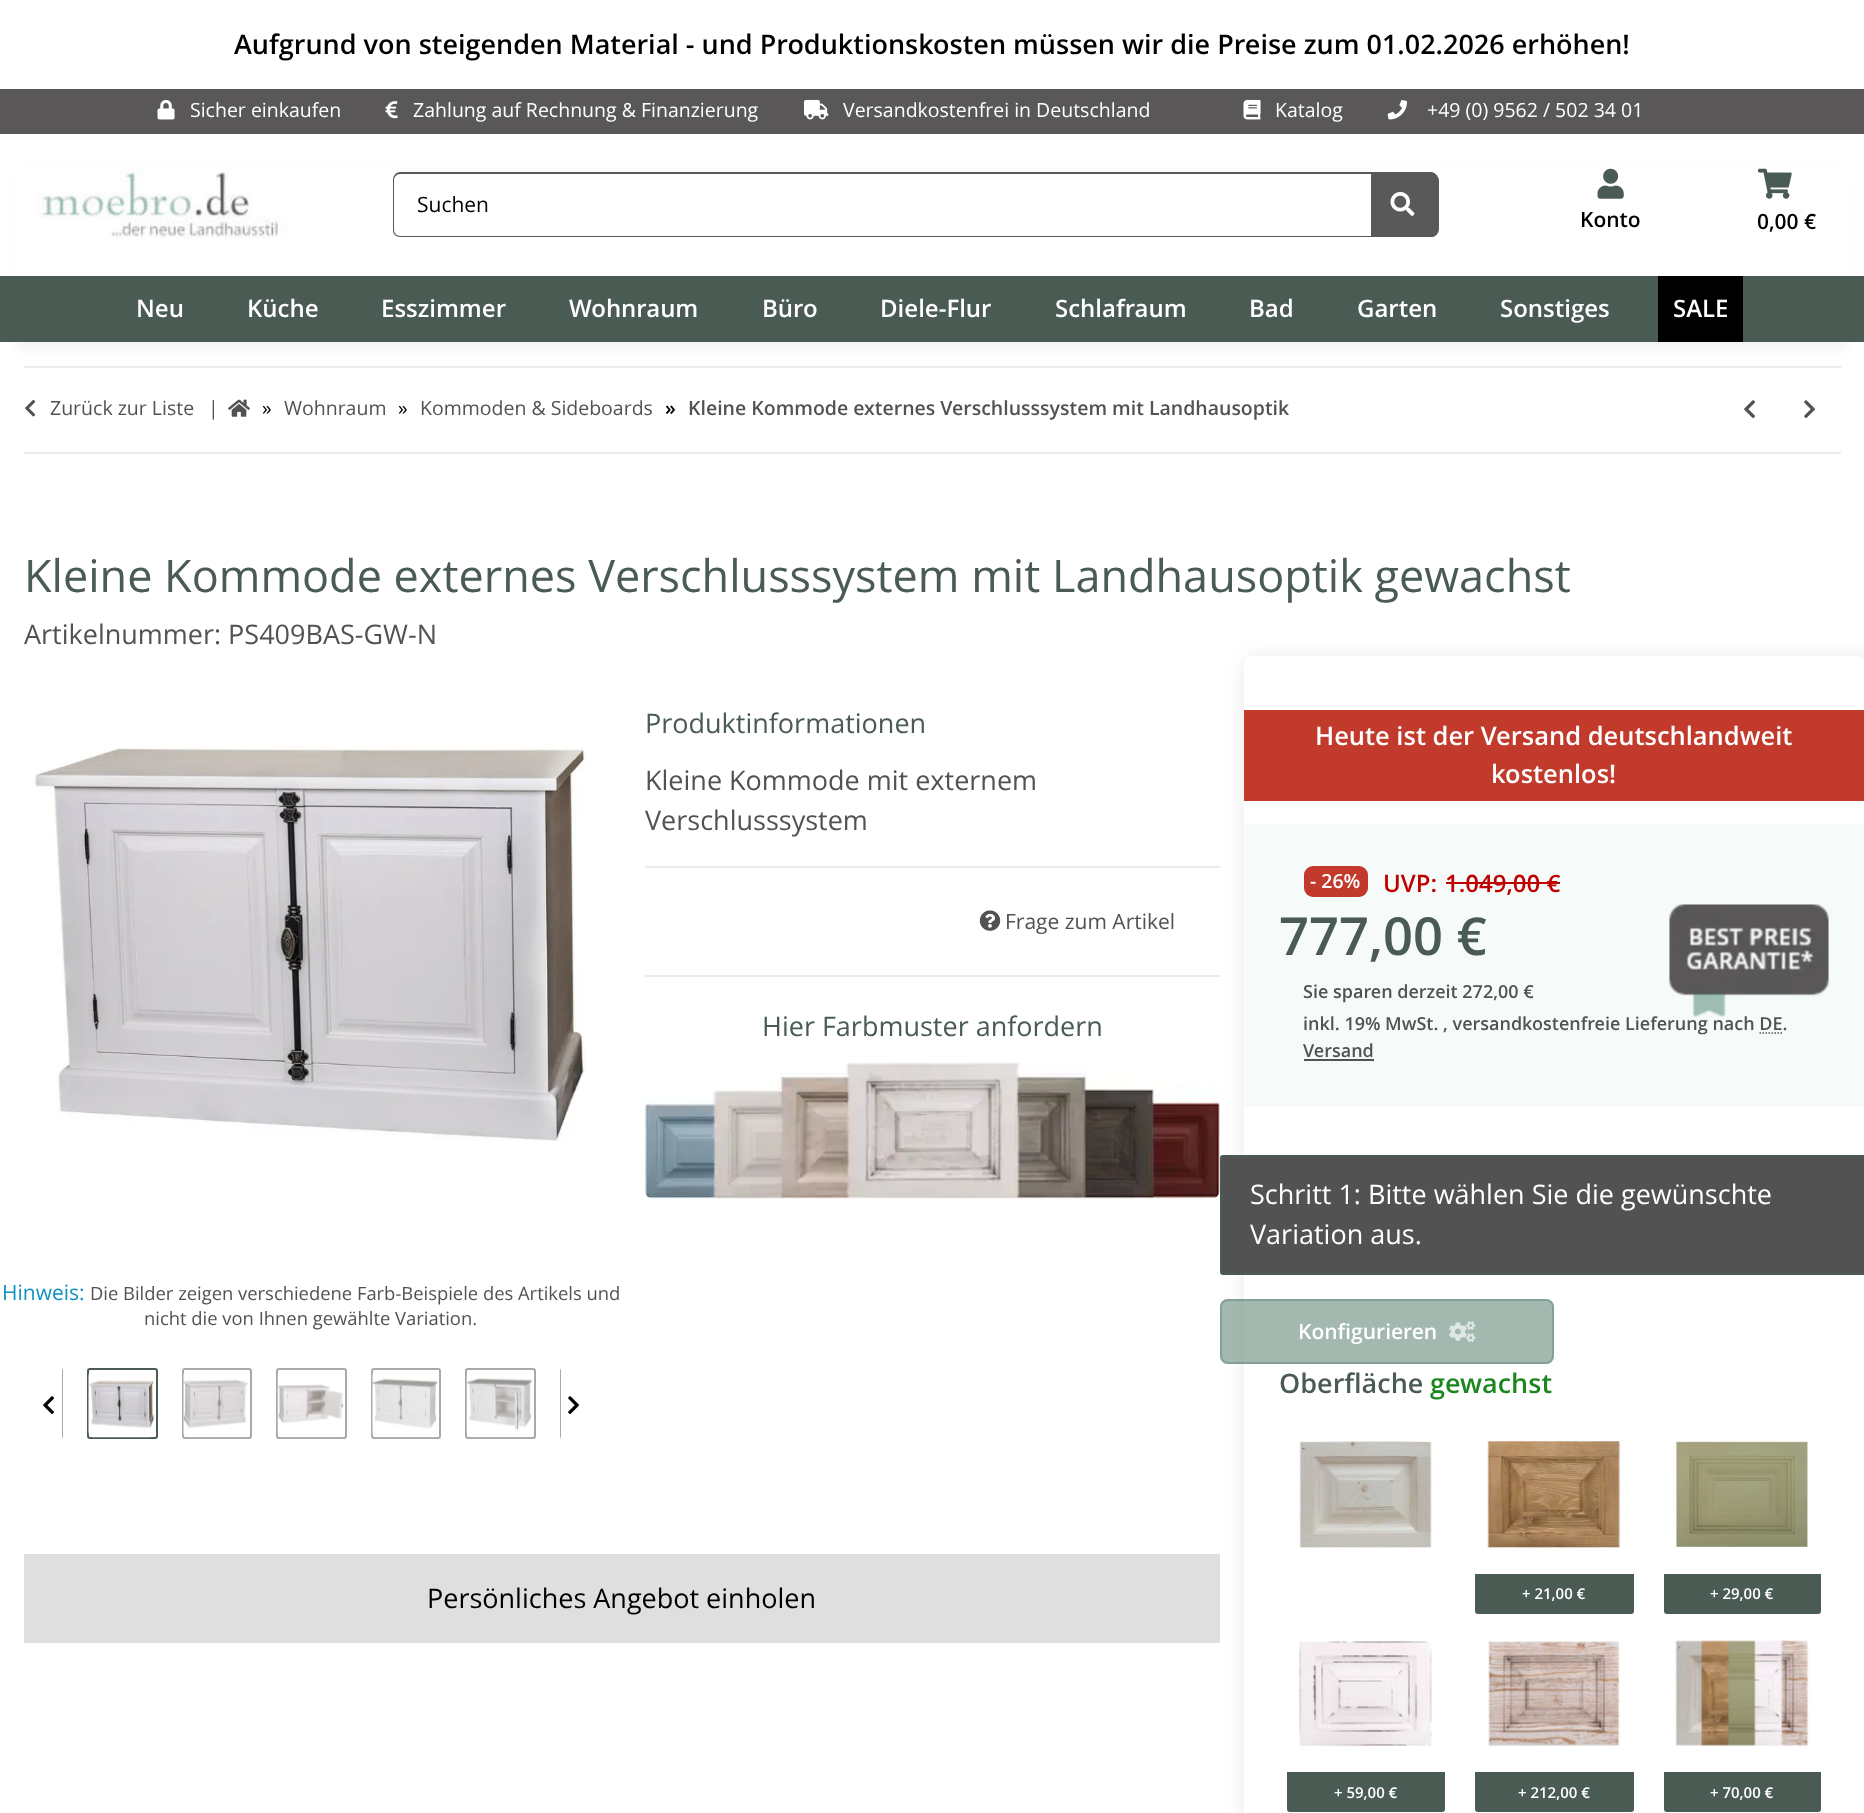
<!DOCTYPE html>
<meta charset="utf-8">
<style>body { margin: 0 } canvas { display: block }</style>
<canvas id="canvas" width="1864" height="1813"></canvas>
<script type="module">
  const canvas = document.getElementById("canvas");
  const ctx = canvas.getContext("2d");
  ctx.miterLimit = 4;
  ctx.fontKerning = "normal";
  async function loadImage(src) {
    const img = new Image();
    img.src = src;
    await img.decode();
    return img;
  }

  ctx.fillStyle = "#ffffff";
  ctx.fillRect(0, 0, 1864, 1813);
  ctx.font = "600 27px Open Sans";
  ctx.fillStyle = "#000000";
  ctx.fillText("Aufgrund von steigenden Material - und Produktionskosten müssen wir die Preise zum 01.02.2026 erhöhen!", 234, 54);
  ctx.fillStyle = "#595758";
  ctx.fillRect(0, 89, 1864, 45);
  ctx.drawImage(await loadImage("img1.png"), 157, 100, 18, 20);
  ctx.font = "19.5px Open Sans";
  ctx.fillStyle = "#ffffff";
  ctx.fillText("Sicher einkaufen", 190, 117);
  ctx.drawImage(await loadImage("img2.png"), 385, 101, 13, 18);
  ctx.fillText("Zahlung auf Rechnung & Finanzierung", 413, 117);
  ctx.drawImage(await loadImage("img3.png"), 804, 99, 25, 21);
  ctx.fillText("Versandkostenfrei in Deutschland", 843, 117);
  ctx.drawImage(await loadImage("img4.png"), 1243, 99, 18, 21);
  ctx.fillText("Katalog", 1275, 117);
  ctx.drawImage(await loadImage("img5.png"), 1387, 100, 20, 20);
  ctx.fillText("+49 (0) 9562 / 502 34 01", 1427, 117);
  ctx.fillStyle = "#ebebeb";
  ctx.fillRect(24, 366, 1817, 2);
  ctx.fillStyle = "rgba(0, 0, 0, 0.06)";
  ctx.filter = "blur(7px)";
  ctx.beginPath();
  ctx.rect(18, 176, 1829, 172);
  ctx.fill();
  ctx.filter = "none";
  ctx.fillStyle = "#ffffff";
  ctx.fillRect(11, 169, 1843, 107);
  ctx.drawImage(await loadImage("img6.png"), 36, 169, 252, 70);
  ctx.fillStyle = "#595959";
  ctx.beginPath();
  ctx.moveTo(400, 172);
  ctx.lineTo(1372, 172);
  ctx.lineTo(1372, 237);
  ctx.lineTo(400, 237);
  ctx.bezierCurveTo(396, 237, 393, 234, 393, 230);
  ctx.lineTo(393, 180);
  ctx.bezierCurveTo(393, 176, 396, 172, 400, 172);
  ctx.closePath();
  ctx.moveTo(400, 174);
  ctx.lineTo(1372, 174);
  ctx.lineTo(1372, 236);
  ctx.lineTo(400, 236);
  ctx.bezierCurveTo(397, 236, 394, 233, 394, 230);
  ctx.lineTo(394, 180);
  ctx.bezierCurveTo(394, 177, 397, 174, 400, 174);
  ctx.closePath();
  ctx.fill("evenodd");
  ctx.font = "21px Open Sans";
  ctx.fillStyle = "#000000";
  ctx.fillText("Suchen", 417, 212);
  ctx.fillStyle = "#595959";
  ctx.beginPath();
  ctx.roundRect(1371, 173, 68, 64, [0, 8, 8, 0]);
  ctx.fill();
  ctx.beginPath();
  ctx.moveTo(1371, 172);
  ctx.lineTo(1431, 172);
  ctx.bezierCurveTo(1435, 172, 1438, 176, 1438, 180);
  ctx.lineTo(1438, 230);
  ctx.bezierCurveTo(1438, 234, 1435, 237, 1431, 237);
  ctx.lineTo(1371, 237);
  ctx.closePath();
  ctx.moveTo(1371, 174);
  ctx.lineTo(1431, 174);
  ctx.bezierCurveTo(1434, 174, 1437, 177, 1437, 180);
  ctx.lineTo(1437, 230);
  ctx.bezierCurveTo(1437, 233, 1434, 236, 1431, 236);
  ctx.lineTo(1371, 236);
  ctx.closePath();
  ctx.fill("evenodd");
  ctx.drawImage(await loadImage("img7.png"), 1390, 192, 25, 24);
  ctx.drawImage(await loadImage("img8.png"), 1597, 168, 27, 31);
  ctx.font = "600 21px Open Sans";
  ctx.fillStyle = "#000000";
  ctx.fillText("Konto", 1580, 227);
  ctx.drawImage(await loadImage("img9.png"), 1758, 168, 34, 31);
  ctx.fillText("0,00 €", 1757, 229);
  ctx.fillStyle = "#495b53";
  ctx.fillRect(0, 276, 1864, 66);
  ctx.font = "600 24px Open Sans";
  ctx.fillStyle = "#ffffff";
  ctx.fillText("Neu", 136, 317);
  ctx.fillText("Küche", 247, 317);
  ctx.fillText("Esszimmer", 381, 317);
  ctx.fillText("Wohnraum", 569, 317);
  ctx.fillText("Büro", 762, 317);
  ctx.fillText("Diele-Flur", 880, 317);
  ctx.fillText("Schlafraum", 1055, 317);
  ctx.fillText("Bad", 1249, 317);
  ctx.fillText("Garten", 1357, 317);
  ctx.fillText("Sonstiges", 1500, 317);
  ctx.fillStyle = "#000000";
  ctx.fillRect(1658, 276, 85, 66);
  ctx.fillStyle = "#ffffff";
  ctx.fillText("SALE", 1673, 317);
  ctx.fillStyle = "#ebebeb";
  ctx.fillRect(24, 452, 1817, 2);
  ctx.drawImage(await loadImage("img10.png"), 25, 399, 11, 18);
  ctx.font = "19.5px Open Sans";
  ctx.fillStyle = "#525252";
  ctx.fillText("Zurück zur Liste", 50, 415);
  ctx.fillText("|", 208, 415);
  ctx.drawImage(await loadImage("img11.png"), 228, 399, 22, 18);
  ctx.fillStyle = "#000000";
  ctx.fillText("»", 262, 415);
  ctx.fillStyle = "#525252";
  ctx.fillText("Wohnraum", 284, 415);
  ctx.fillStyle = "#000000";
  ctx.fillText("»", 398, 415);
  ctx.fillStyle = "#525252";
  ctx.fillText("Kommoden & Sideboards", 420, 415);
  ctx.font = "600 19.5px Open Sans";
  ctx.fillStyle = "#000000";
  ctx.fillText("»", 665, 415);
  ctx.fillStyle = "#525252";
  ctx.fillText("Kleine Kommode externes Verschlusssystem mit Landhausoptik", 688, 415);
  ctx.drawImage(await loadImage("img12.png"), 1744, 400, 11, 18);
  ctx.drawImage(await loadImage("img13.png"), 1804, 400, 11, 18);
  ctx.font = "45px Open Sans";
  ctx.fillStyle = "#495b53";
  ctx.fillText("Kleine Kommode externes Verschlusssystem mit Landhausoptik gewachst", 24, 592);
  ctx.font = "27px Open Sans";
  ctx.fillStyle = "#525252";
  ctx.fillText("Artikelnummer: PS409BAS-GW-N", 24, 644);
  ctx.fillStyle = "#495b53";
  ctx.fillText("Produktinformationen", 645, 733);
  ctx.fillStyle = "#525252";
  ctx.fillText("Kleine Kommode mit externem", 645, 790);
  ctx.fillText("Verschlusssystem", 645, 830);
  ctx.fillStyle = "#ebebeb";
  ctx.fillRect(645, 866, 575, 2);
  ctx.fillRect(645, 975, 575, 2);
  ctx.drawImage(await loadImage("img14.png"), 979, 910, 22, 21);
  ctx.font = "21px Open Sans";
  ctx.fillStyle = "#525252";
  ctx.fillText("Frage zum Artikel", 1005, 929);
  ctx.font = "27px Open Sans";
  ctx.fillStyle = "#495b53";
  ctx.fillText("Hier Farbmuster anfordern", 762, 1036);
  ctx.drawImage(await loadImage("img15.png"), 645, 1062, 575, 137);
  ctx.drawImage(await loadImage("img16.png"), 34, 746, 551, 395);
  ctx.font = "21px Open Sans";
  ctx.fillStyle = "#1191be";
  ctx.fillText("Hinweis:", 2, 1300);
  ctx.font = "18.4px Open Sans";
  ctx.fillStyle = "#525252";
  ctx.fillText("Die Bilder zeigen verschiedene Farb-Beispiele des Artikels und", 90, 1300);
  ctx.fillText("nicht die von Ihnen gewählte Variation.", 144, 1325);
  ctx.save();
  ctx.beginPath();
  ctx.rect(62, 1355, 499, 103);
  ctx.clip();
  ctx.beginPath();
  ctx.roundRect(-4, 1369, 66, 69, 2);
  ctx.strokeStyle = "#a9a9a9";
  ctx.lineWidth = 2;
  ctx.stroke();
  ctx.restore();
  ctx.beginPath();
  ctx.roundRect(88, 1369, 69, 69, 2);
  ctx.strokeStyle = "#495b53";
  ctx.lineWidth = 2;
  ctx.stroke();
  ctx.drawImage(await loadImage("img17.png"), 88, 1373, 66, 65);
  ctx.beginPath();
  ctx.roundRect(183, 1369, 68, 69, 2);
  ctx.strokeStyle = "#a9a9a9";
  ctx.stroke();
  ctx.drawImage(await loadImage("img18.png"), 183, 1373, 65, 65);
  ctx.beginPath();
  ctx.roundRect(277, 1369, 69, 69, 2);
  ctx.stroke();
  ctx.drawImage(await loadImage("img19.png"), 277, 1374, 67, 64);
  ctx.beginPath();
  ctx.roundRect(372, 1369, 68, 69, 2);
  ctx.stroke();
  ctx.drawImage(await loadImage("img20.png"), 372, 1373, 66, 65);
  ctx.beginPath();
  ctx.roundRect(466, 1369, 69, 69, 2);
  ctx.stroke();
  ctx.drawImage(await loadImage("img21.png"), 466, 1374, 67, 64);
  ctx.save();
  ctx.beginPath();
  ctx.rect(62, 1355, 499, 103);
  ctx.clip();
  ctx.beginPath();
  ctx.roundRect(561, 1369, 68, 69, 2);
  ctx.stroke();
  ctx.restore();
  ctx.drawImage(await loadImage("img22.png"), 43, 1396, 11, 18);
  ctx.drawImage(await loadImage("img23.png"), 568, 1396, 11, 18);
  ctx.fillStyle = "#dfdfdf";
  ctx.fillRect(24, 1554, 1196, 89);
  ctx.font = "27px Open Sans";
  ctx.fillStyle = "#000000";
  ctx.fillText("Persönliches Angebot einholen", 427, 1608);
  ctx.fillStyle = "rgba(0, 0, 0, 0.13)";
  ctx.filter = "blur(11px)";
  ctx.beginPath();
  ctx.roundRect(1248, 660, 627, 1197, 11);
  ctx.fill();
  ctx.filter = "none";
  ctx.fillStyle = "#ffffff";
  ctx.beginPath();
  ctx.roundRect(1244, 656, 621, 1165, 8);
  ctx.fill();
  ctx.fillStyle = "#c13a2b";
  ctx.fillRect(1244, 710, 620, 91);
  ctx.font = "600 25.5px Open Sans";
  ctx.fillStyle = "#ffffff";
  ctx.fillText("Heute ist der Versand deutschlandweit", 1315, 745);
  ctx.fillText("kostenlos!", 1491, 783);
  ctx.fillStyle = "#f6faf8";
  ctx.fillRect(1244, 824, 620, 283);
  ctx.fillStyle = "#c13a2b";
  ctx.beginPath();
  ctx.roundRect(1304, 866, 64, 31, 9);
  ctx.fill();
  ctx.font = "600 19.5px Open Sans";
  ctx.fillStyle = "#ffffff";
  ctx.fillText("- 26%", 1310, 888);
  ctx.font = "600 24px Open Sans";
  ctx.fillStyle = "#bf0000";
  ctx.fillText("UVP:", 1383, 892);
  ctx.fillText("1.049,00 €", 1445, 892);
  ctx.fillRect(1446, 882, 114, 2);
  ctx.font = "600 52.5px Open Sans";
  ctx.fillStyle = "#495b53";
  ctx.fillText("777,00 €", 1279, 955);
  ctx.drawImage(await loadImage("img24.png"), 1669, 904, 160, 114);
  ctx.font = "600 18px Open Sans";
  ctx.fillStyle = "#525252";
  ctx.fillText("Sie sparen derzeit 272,00 €", 1303, 998);
  ctx.fillText("inkl. 19% MwSt. , versandkostenfreie Lieferung nach DE.", 1303, 1030);
  ctx.beginPath();
  ctx.moveTo(1759.5, 1033);
  ctx.lineTo(1782.5, 1033);
  ctx.strokeStyle = "#525252";
  ctx.lineWidth = 1.5;
  ctx.setLineDash([1.5, 1.5]);
  ctx.stroke();
  ctx.fillText("Versand", 1303, 1057);
  ctx.fillRect(1304, 1059, 70, 2);
  ctx.beginPath();
  ctx.roundRect(1221, 1156, 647, 118, 2);
  ctx.fill();
  ctx.strokeStyle = "#495b53";
  ctx.lineWidth = 2;
  ctx.setLineDash([]);
  ctx.stroke();
  ctx.font = "27px Open Sans";
  ctx.fillStyle = "#ffffff";
  ctx.fillText("Schritt 1: Bitte wählen Sie die gewünschte", 1250, 1204);
  ctx.fillText("Variation aus.", 1250, 1244);
  ctx.fillStyle = "rgba(113, 147, 133, 0.65)";
  ctx.beginPath();
  ctx.roundRect(1220, 1299, 334, 65, 8);
  ctx.fill();
  ctx.beginPath();
  ctx.roundRect(1221, 1300, 332, 63, 7);
  ctx.strokeStyle = "rgba(113, 147, 133, 0.65)";
  ctx.stroke();
  ctx.font = "600 21px Open Sans";
  ctx.fillStyle = "#ffffff";
  ctx.fillText("Konfigurieren", 1298, 1339);
  ctx.drawImage(await loadImage("img25.png"), 1449, 1321, 27, 21);
  ctx.font = "600 27px Open Sans";
  ctx.fillStyle = "#495b53";
  ctx.fillText("Oberfläche", 1279, 1393);
  ctx.fillStyle = "#1c871e";
  ctx.fillText("gewachst", 1430, 1393);
  ctx.drawImage(await loadImage("img26.png"), 1299, 1441, 134, 107);
  ctx.drawImage(await loadImage("img27.png"), 1487, 1440, 134, 108);
  ctx.fillStyle = "#495b53";
  ctx.beginPath();
  ctx.roundRect(1475, 1574, 159, 40, [0, 0, 3, 3]);
  ctx.fill();
  ctx.font = "600 15px Open Sans";
  ctx.fillStyle = "#ffffff";
  ctx.fillText("+ 21,00 €", 1522, 1599);
  ctx.drawImage(await loadImage("img28.png"), 1675, 1440, 134, 108);
  ctx.fillStyle = "#495b53";
  ctx.beginPath();
  ctx.roundRect(1664, 1574, 157, 40, [0, 0, 3, 3]);
  ctx.fill();
  ctx.fillStyle = "#ffffff";
  ctx.fillText("+ 29,00 €", 1710, 1599);
  ctx.drawImage(await loadImage("img29.png"), 1299, 1641, 133, 106);
  ctx.fillStyle = "#495b53";
  ctx.beginPath();
  ctx.roundRect(1287, 1772, 158, 40, [0, 0, 3, 3]);
  ctx.fill();
  ctx.fillStyle = "#ffffff";
  ctx.fillText("+ 59,00 €", 1334, 1798);
  ctx.drawImage(await loadImage("img30.png"), 1487, 1641, 134, 106);
  ctx.fillStyle = "#495b53";
  ctx.beginPath();
  ctx.roundRect(1475, 1772, 159, 40, [0, 0, 3, 3]);
  ctx.fill();
  ctx.fillStyle = "#ffffff";
  ctx.fillText("+ 212,00 €", 1518, 1798);
  ctx.drawImage(await loadImage("img31.png"), 1674, 1640, 136, 107);
  ctx.fillStyle = "#495b53";
  ctx.beginPath();
  ctx.roundRect(1664, 1772, 157, 40, [0, 0, 3, 3]);
  ctx.fill();
  ctx.fillStyle = "#ffffff";
  ctx.fillText("+ 70,00 €", 1710, 1798);
</script>
